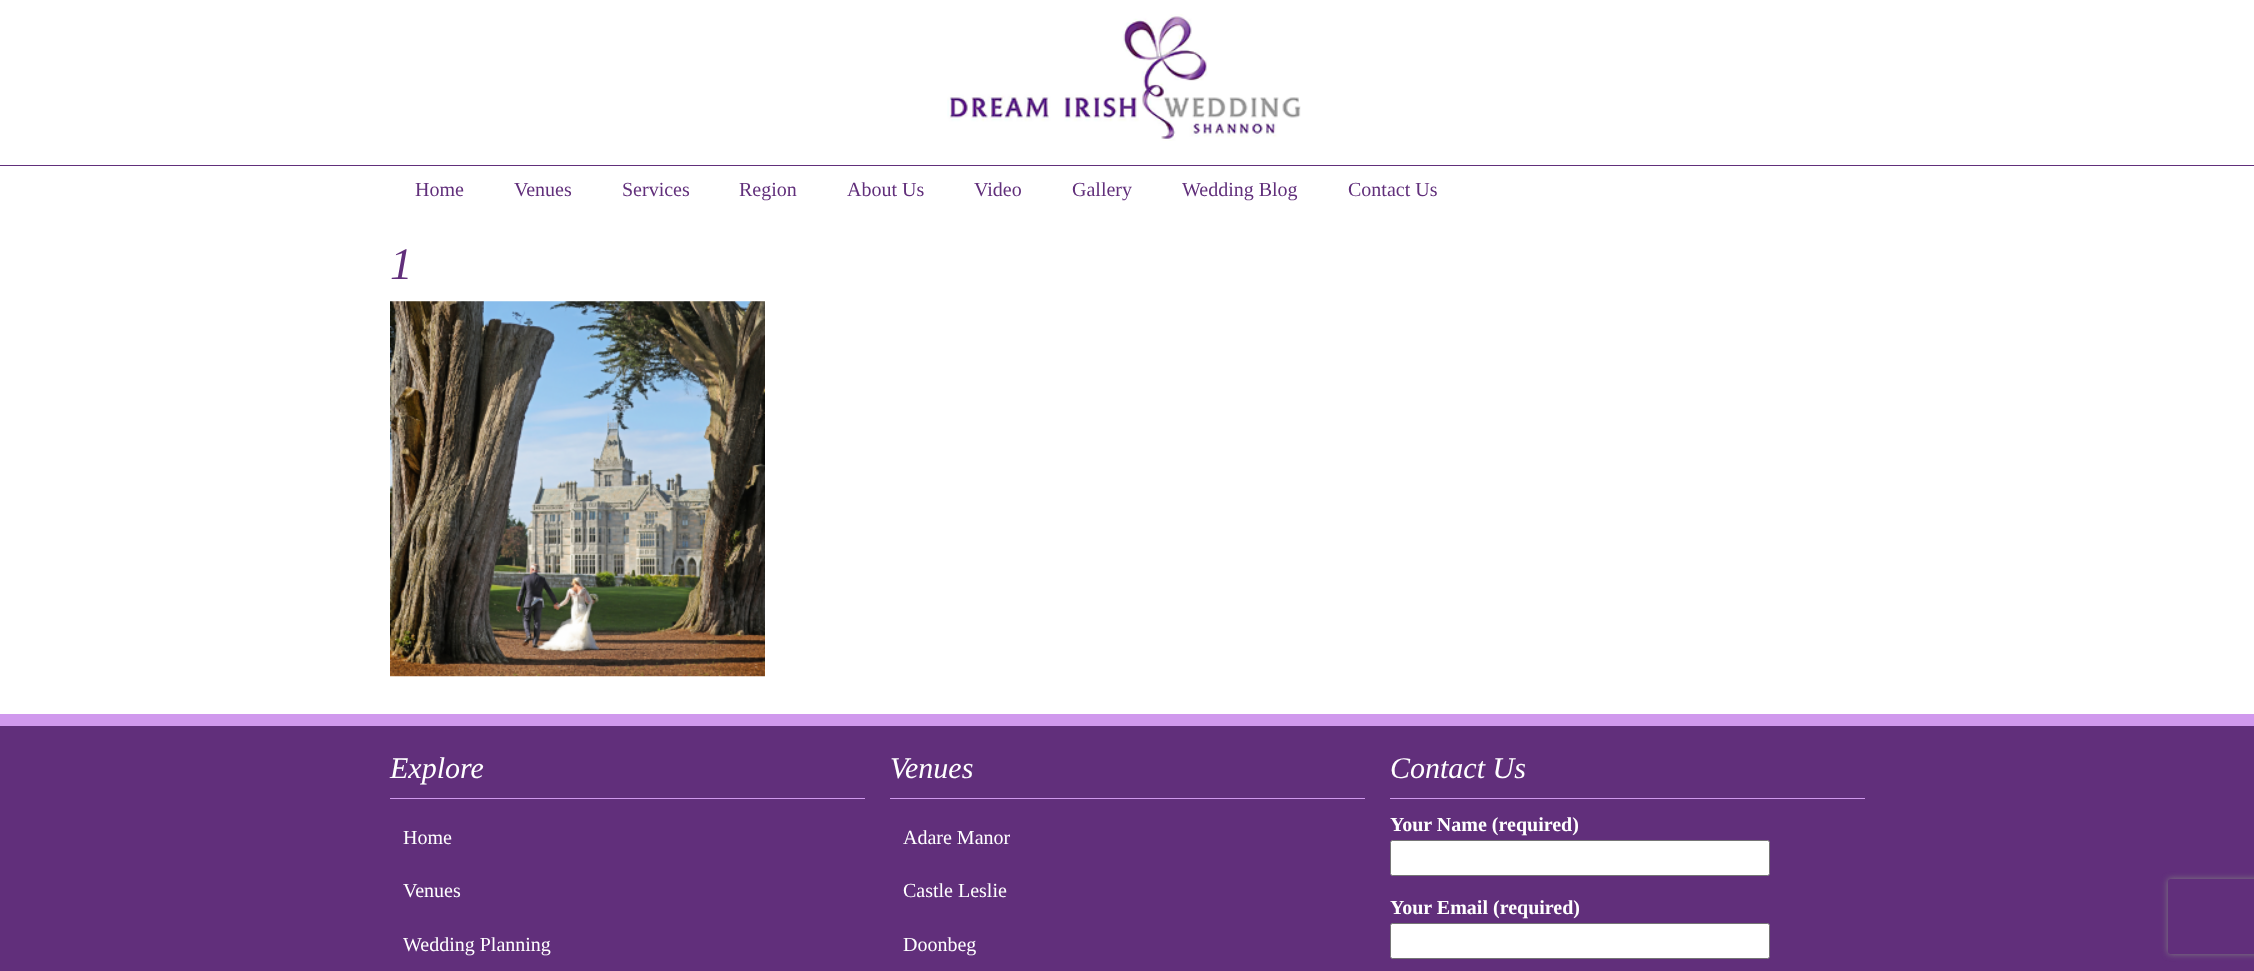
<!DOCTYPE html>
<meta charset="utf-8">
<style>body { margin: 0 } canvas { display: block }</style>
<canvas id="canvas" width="2254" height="971"></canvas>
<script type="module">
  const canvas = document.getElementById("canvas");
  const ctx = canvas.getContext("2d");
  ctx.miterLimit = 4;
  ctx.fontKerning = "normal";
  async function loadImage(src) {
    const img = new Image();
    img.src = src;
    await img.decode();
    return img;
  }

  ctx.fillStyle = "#ffffff";
  ctx.fillRect(0, 0, 2254, 971);
  ctx.fillStyle = "#612f7b";
  ctx.fillRect(0, 165, 2254, 1);
  ctx.drawImage(await loadImage("img1.png"), 947, 14, 354, 127);
  ctx.font = "20px Liberation Serif";
  ctx.fillText("Home", 415, 196);
  ctx.fillText("Venues", 514, 196);
  ctx.fillText("Services", 622, 196);
  ctx.fillText("Region", 739, 196);
  ctx.fillText("About Us", 847, 196);
  ctx.fillText("Video", 974, 196);
  ctx.fillText("Gallery", 1072, 196);
  ctx.fillText("Wedding Blog", 1182, 196);
  ctx.fillText("Contact Us", 1348, 196);
  ctx.font = "italic 45px Liberation Serif";
  ctx.fillText("1", 390, 279);
  ctx.drawImage(await loadImage("img2.png"), 390, 301, 375, 376);
  ctx.fillRect(0, 726, 2254, 245);
  ctx.fillStyle = "#d099ed";
  ctx.fillRect(0, 714, 2254, 12);
  ctx.fillRect(390, 798, 475, 1);
  ctx.font = "italic 30px Liberation Serif";
  ctx.fillStyle = "#ffffff";
  ctx.fillText("Explore", 390, 778);
  ctx.font = "20px Liberation Serif";
  ctx.fillText("Home", 403, 844);
  ctx.fillText("Venues", 403, 897);
  ctx.fillText("Wedding Planning", 403, 951);
  ctx.fillStyle = "#d099ed";
  ctx.fillRect(890, 798, 475, 1);
  ctx.font = "italic 30px Liberation Serif";
  ctx.fillStyle = "#ffffff";
  ctx.fillText("Venues", 890, 778);
  ctx.font = "20px Liberation Serif";
  ctx.fillText("Adare Manor", 903, 844);
  ctx.fillText("Castle Leslie", 903, 897);
  ctx.fillText("Doonbeg", 903, 951);
  ctx.fillStyle = "#d099ed";
  ctx.fillRect(1390, 798, 475, 1);
  ctx.font = "italic 30px Liberation Serif";
  ctx.fillStyle = "#ffffff";
  ctx.fillText("Contact Us", 1390, 778);
  ctx.font = "bold 20px Liberation Serif";
  ctx.fillText("Your Name (required)", 1390, 831);
  ctx.beginPath();
  ctx.roundRect(1390.5, 840.5, 379, 35, 2);
  ctx.fill();
  ctx.strokeStyle = "#767676";
  ctx.stroke();
  ctx.fillText("Your Email (required)", 1390, 914);
  ctx.beginPath();
  ctx.roundRect(1390.5, 923.5, 379, 35, 2);
  ctx.fill();
  ctx.stroke();
  ctx.save();
  ctx.beginPath();
  ctx.moveTo(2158, 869);
  ctx.lineTo(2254, 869);
  ctx.lineTo(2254, 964);
  ctx.lineTo(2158, 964);
  ctx.closePath();
  ctx.moveTo(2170.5, 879);
  ctx.lineTo(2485.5, 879);
  ctx.bezierCurveTo(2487, 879, 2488, 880, 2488, 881.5);
  ctx.lineTo(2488, 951.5);
  ctx.bezierCurveTo(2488, 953, 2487, 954, 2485.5, 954);
  ctx.lineTo(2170.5, 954);
  ctx.bezierCurveTo(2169, 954, 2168, 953, 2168, 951.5);
  ctx.lineTo(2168, 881.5);
  ctx.bezierCurveTo(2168, 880, 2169, 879, 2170.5, 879);
  ctx.closePath();
  ctx.clip("evenodd");
  ctx.fillStyle = "#808080";
  ctx.filter = "blur(3px)";
  ctx.beginPath();
  ctx.roundRect(2168, 879, 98, 75, 2.5);
  ctx.fill();
  ctx.filter = "none";
  ctx.restore();
</script>
